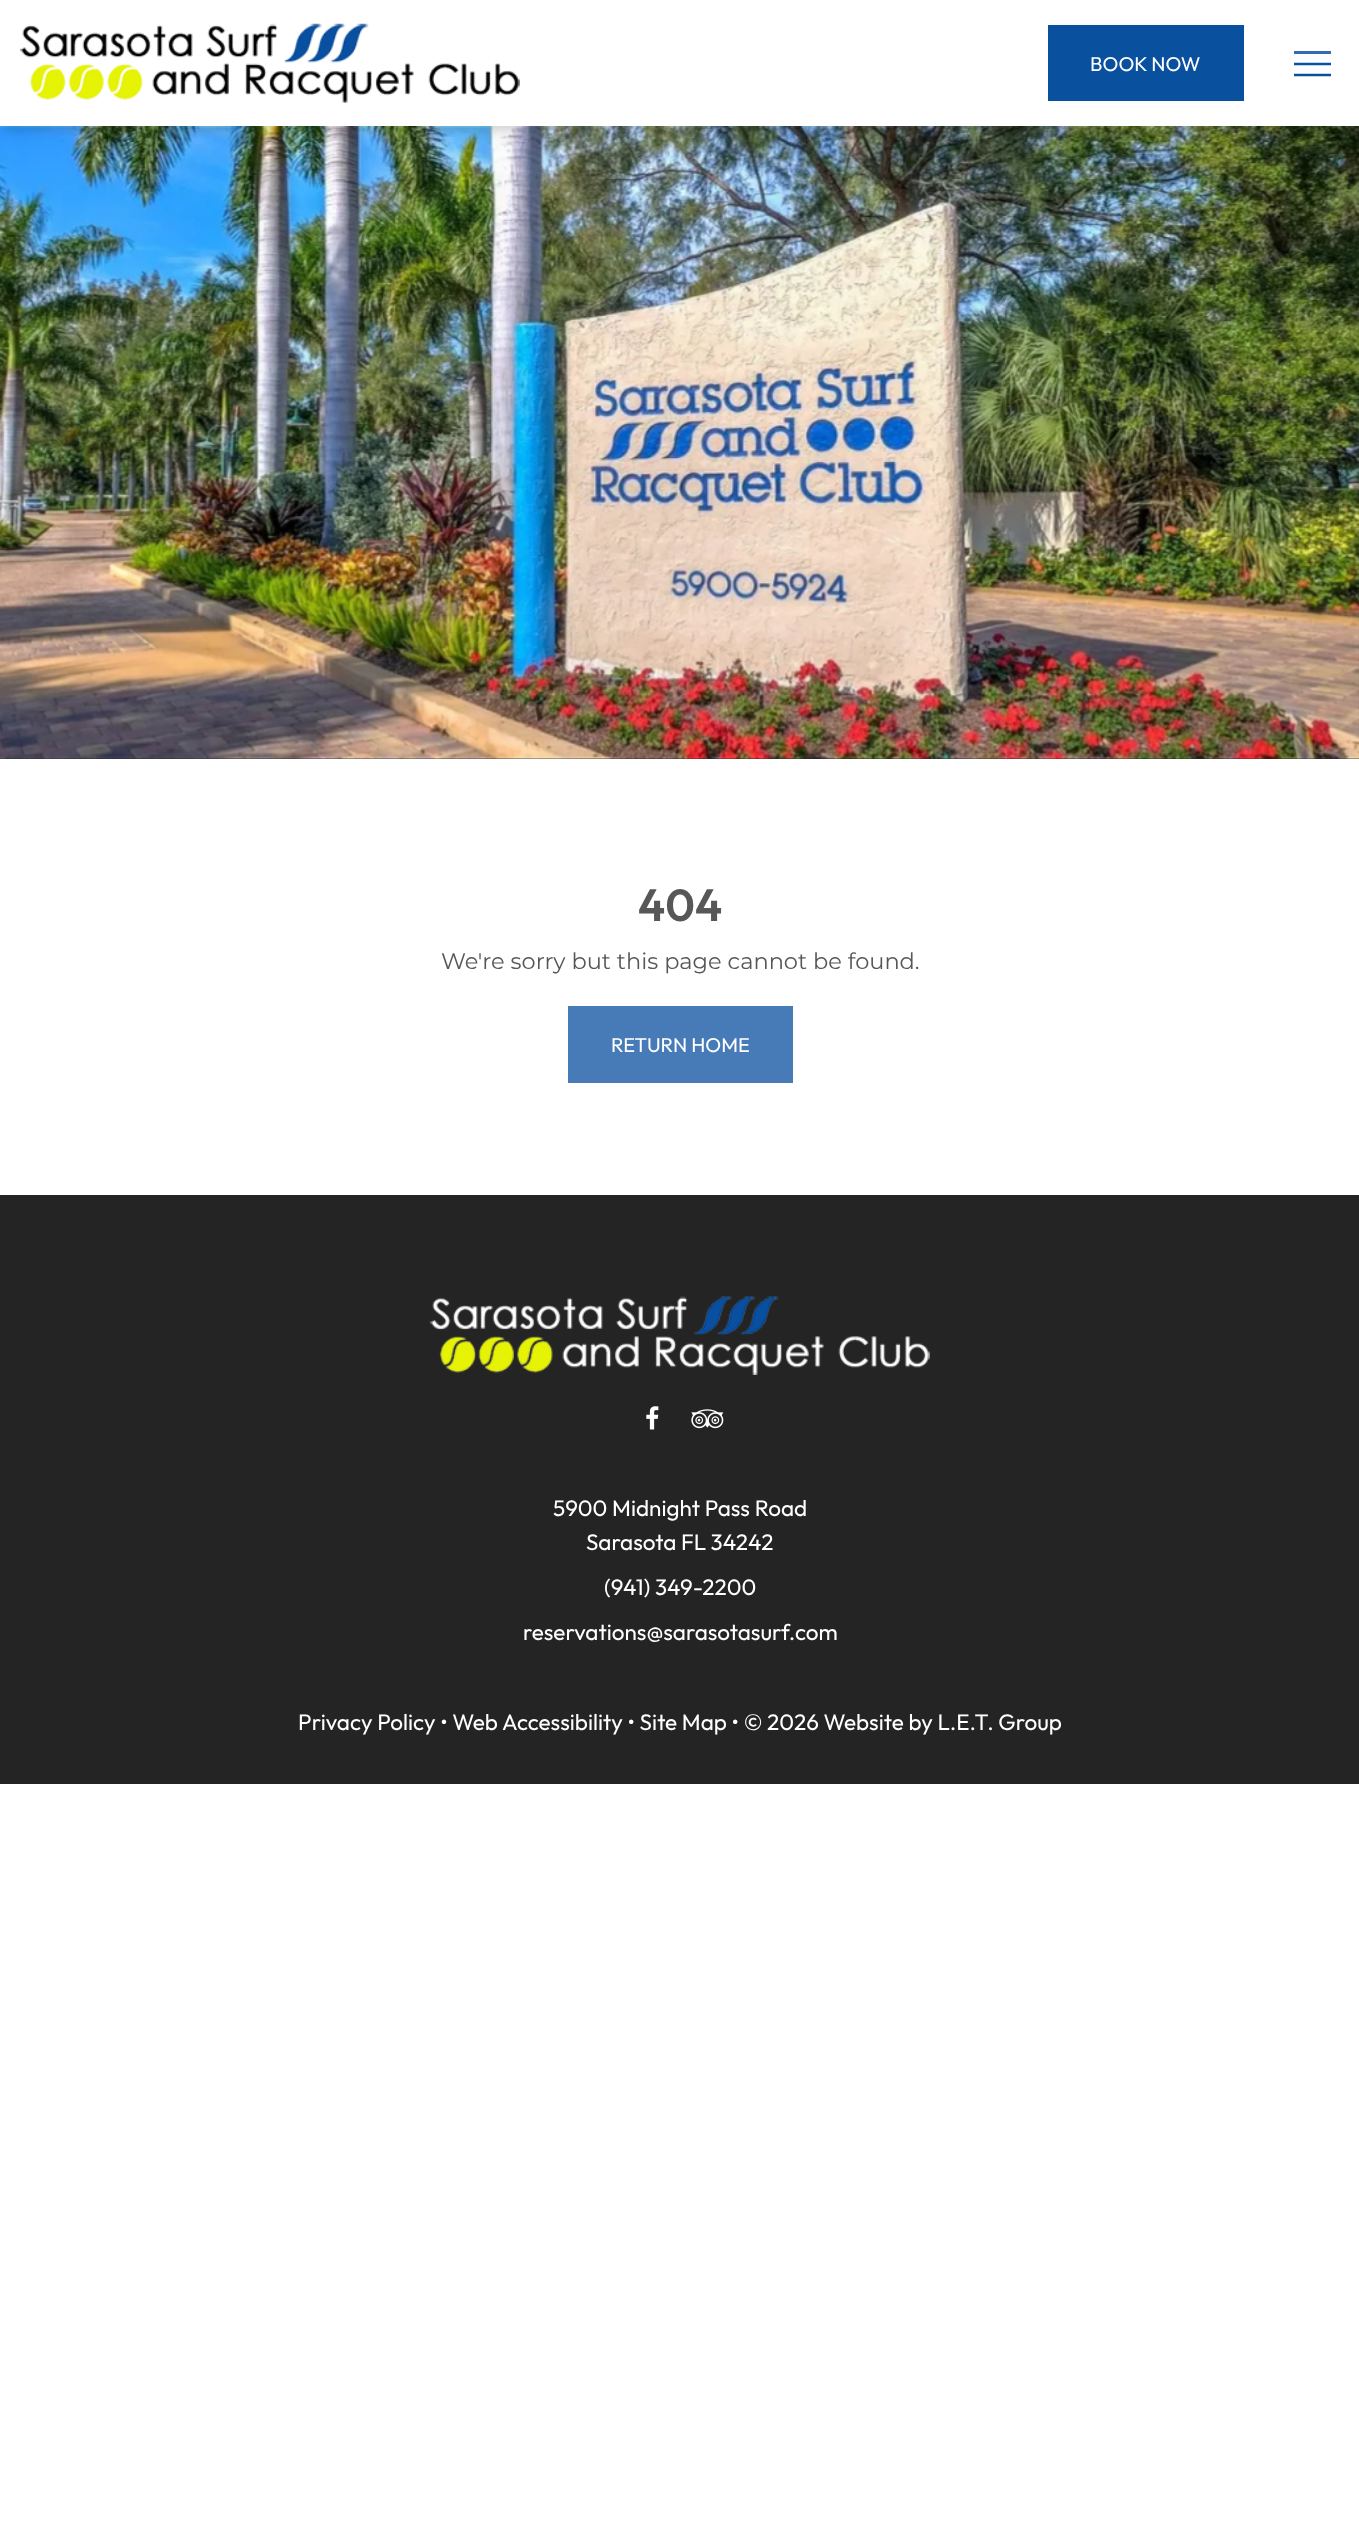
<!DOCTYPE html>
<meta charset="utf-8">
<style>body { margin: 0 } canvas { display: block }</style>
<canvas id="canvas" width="1359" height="2527"></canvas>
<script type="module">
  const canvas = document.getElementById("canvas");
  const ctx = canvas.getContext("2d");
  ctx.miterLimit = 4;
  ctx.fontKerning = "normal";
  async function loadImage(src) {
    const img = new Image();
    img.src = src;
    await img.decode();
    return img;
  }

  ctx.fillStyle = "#ffffff";
  ctx.fillRect(0, 0, 1359, 2527);
  ctx.fillStyle = "#242424";
  ctx.fillRect(0, 126, 1359, 633);
  ctx.drawImage(await loadImage("img2.png"), 0, 126, 1359, 633);
  ctx.fillStyle = "rgba(0, 0, 0, 0.18)";
  ctx.filter = "blur(6px)";
  ctx.beginPath();
  ctx.rect(4, 4, 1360, 126);
  ctx.fill();
  ctx.filter = "none";
  ctx.fillStyle = "#ffffff";
  ctx.fillRect(0, 0, 1359, 126);
  ctx.drawImage(await loadImage("img1.png"), 20, 23, 500, 80);
  ctx.fillStyle = "#09509f";
  ctx.fillRect(1048, 25, 196, 76);
  ctx.font = "20px Outfit";
  ctx.fillStyle = "#ffffff";
  ctx.fillText("BOOK NOW", 1090, 71);
  ctx.fillStyle = "#326daf";
  ctx.fillRect(1294, 51, 37, 3);
  ctx.beginPath();
  ctx.moveTo(1294, 64);
  ctx.lineTo(1331, 64);
  ctx.moveTo(1294, 75);
  ctx.lineTo(1331, 75);
  ctx.strokeStyle = "#09509f";
  ctx.lineWidth = 2.5;
  ctx.stroke();
  ctx.font = "600 45px Outfit";
  ctx.fillStyle = "#575757";
  ctx.fillText("404", 638, 921);
  ctx.font = "22.5px Montserrat";
  ctx.fillText("We're sorry but this page cannot be found.", 441, 969);
  ctx.fillStyle = "#467bb7";
  ctx.fillRect(568, 1006, 225, 77);
  ctx.font = "20px Outfit";
  ctx.fillStyle = "#ffffff";
  ctx.fillText("RETURN HOME", 611, 1052);
  ctx.fillStyle = "#242424";
  ctx.fillRect(0, 1195, 1359, 589);
  ctx.drawImage(await loadImage("img3.png"), 430, 1296, 500, 79);
  ctx.drawImage(await loadImage("img4.png"), 646, 1406, 13, 24);
  ctx.drawImage(await loadImage("img5.png"), 691, 1409, 33, 20);
  ctx.font = "22.5px Outfit";
  ctx.fillStyle = "#ffffff";
  ctx.fillText("5900 Midnight Pass Road", 553, 1516);
  ctx.fillText("Sarasota FL 34242", 586, 1550);
  ctx.fillText("(941) 349-2200", 604, 1595);
  ctx.fillText("reservations@sarasotasurf.com", 523, 1640);
  ctx.fillText("Privacy Policy • Web Accessibility • Site Map • © 2026 Website by L.E.T. Group", 298, 1730);
</script>
